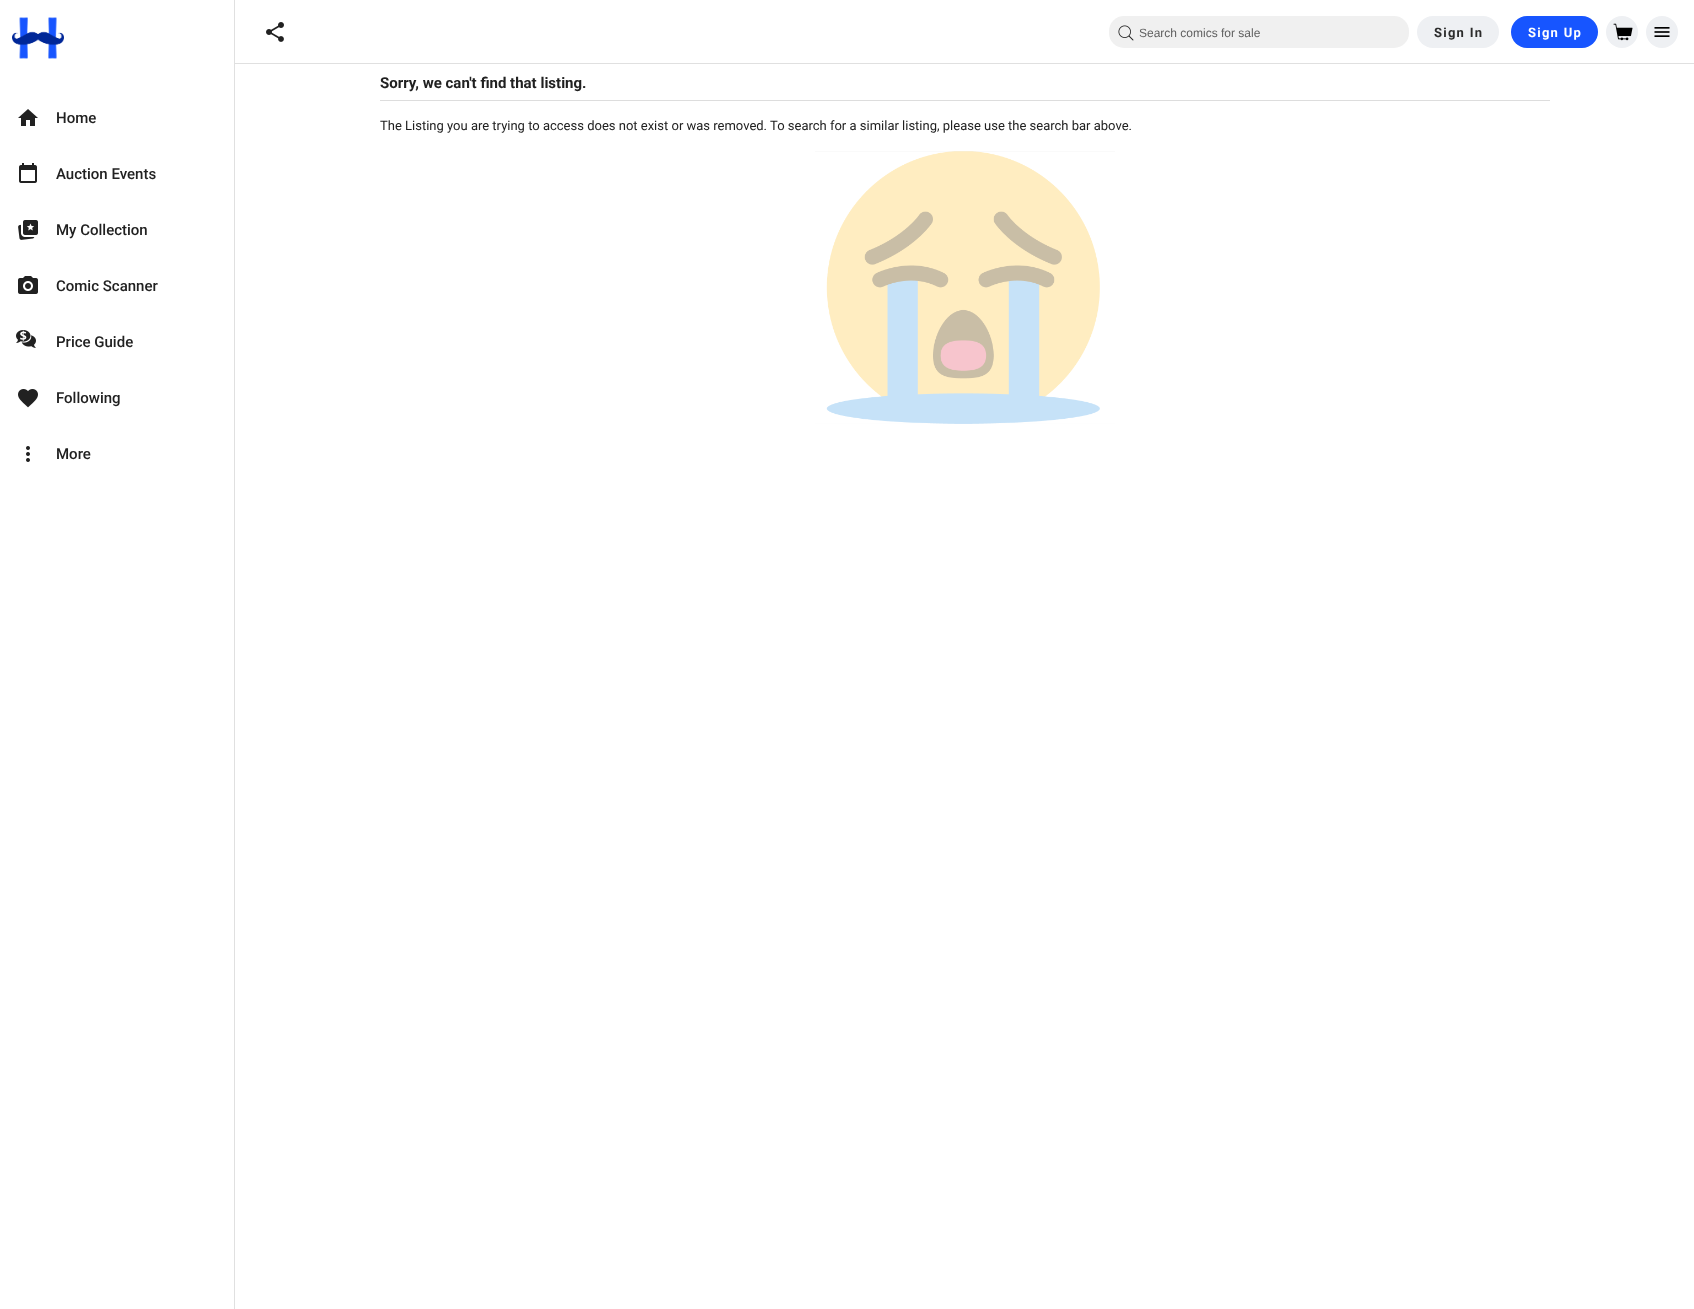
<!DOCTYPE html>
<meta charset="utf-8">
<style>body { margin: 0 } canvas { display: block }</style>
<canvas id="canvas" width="1694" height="1309"></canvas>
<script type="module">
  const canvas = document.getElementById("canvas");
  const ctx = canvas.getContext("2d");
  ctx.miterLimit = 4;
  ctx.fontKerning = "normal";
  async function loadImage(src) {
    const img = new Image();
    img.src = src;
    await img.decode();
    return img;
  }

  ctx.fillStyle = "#ffffff";
  ctx.fillRect(0, 0, 1694, 1309);
  ctx.fillStyle = "#e0e0e0";
  ctx.fillRect(235, 63, 1459, 1);
  ctx.drawImage(await loadImage("img1.png"), 266, 22, 18, 20);
  ctx.fillStyle = "#f0f0f0";
  ctx.beginPath();
  ctx.roundRect(1109, 16, 300, 32, 15);
  ctx.fill();
  ctx.drawImage(await loadImage("img2.png"), 1118, 25, 16, 16);
  ctx.font = "12px Liberation Sans";
  ctx.fillStyle = "#606060";
  ctx.fillText("Search comics for sale", 1139, 37);
  ctx.fillStyle = "#eef0f3";
  ctx.beginPath();
  ctx.roundRect(1417, 16, 82, 32, 16);
  ctx.fill();
  ctx.letterSpacing = "1.25px";
  ctx.font = "bold 13px Roboto";
  ctx.fillStyle = "#2c2c2c";
  ctx.fillText("Sign In", 1434, 37);
  ctx.fillStyle = "#1755ff";
  ctx.beginPath();
  ctx.roundRect(1511, 16, 87, 32, 16);
  ctx.fill();
  ctx.fillStyle = "#ffffff";
  ctx.fillText("Sign Up", 1528, 37);
  ctx.fillStyle = "#eef0f3";
  ctx.beginPath();
  ctx.arc(1622, 32, 16, 0, Math.PI * 2);
  ctx.fill();
  ctx.drawImage(await loadImage("img3.png"), 1613, 23, 20, 18);
  ctx.beginPath();
  ctx.arc(1662, 32, 16, 0, Math.PI * 2);
  ctx.fill();
  ctx.drawImage(await loadImage("img4.png"), 1654, 27, 16, 10);
  ctx.fillStyle = "#dddddd";
  ctx.fillRect(380, 100, 1170, 1);
  ctx.letterSpacing = "0px";
  ctx.font = "bold 15px Roboto";
  ctx.fillStyle = "#212121";
  ctx.fillText("Sorry, we can't find that listing.", 380, 88);
  ctx.font = "13px Roboto";
  ctx.fillText("The Listing you are trying to access does not exist or was removed. To search for a similar listing, please use the search bar above.", 380, 130);
  ctx.drawImage(await loadImage("img5.png"), 815, 151, 300, 273);
  ctx.fillStyle = "#e0e0e0";
  ctx.fillRect(234, 0, 1, 1309);
  ctx.drawImage(await loadImage("img6.png"), 12, 17, 52, 42);
  ctx.drawImage(await loadImage("img7.png"), 18, 109, 20, 17);
  ctx.font = "500 15px Roboto";
  ctx.fillStyle = "#212121";
  ctx.fillText("Home", 56, 123);
  ctx.drawImage(await loadImage("img8.png"), 19, 163, 18, 20);
  ctx.fillText("Auction Events", 56, 179);
  ctx.drawImage(await loadImage("img9.png"), 18, 220, 20, 20);
  ctx.fillText("My Collection", 56, 235);
  ctx.drawImage(await loadImage("img10.png"), 18, 276, 20, 18);
  ctx.fillText("Comic Scanner", 56, 291);
  ctx.drawImage(await loadImage("img11.png"), 16, 330, 20, 18);
  ctx.fillText("Price Guide", 56, 347);
  ctx.drawImage(await loadImage("img12.png"), 18, 389, 20, 19);
  ctx.fillText("Following", 56, 403);
  ctx.drawImage(await loadImage("img13.png"), 26, 446, 4, 16);
  ctx.fillText("More", 56, 459);
</script>
